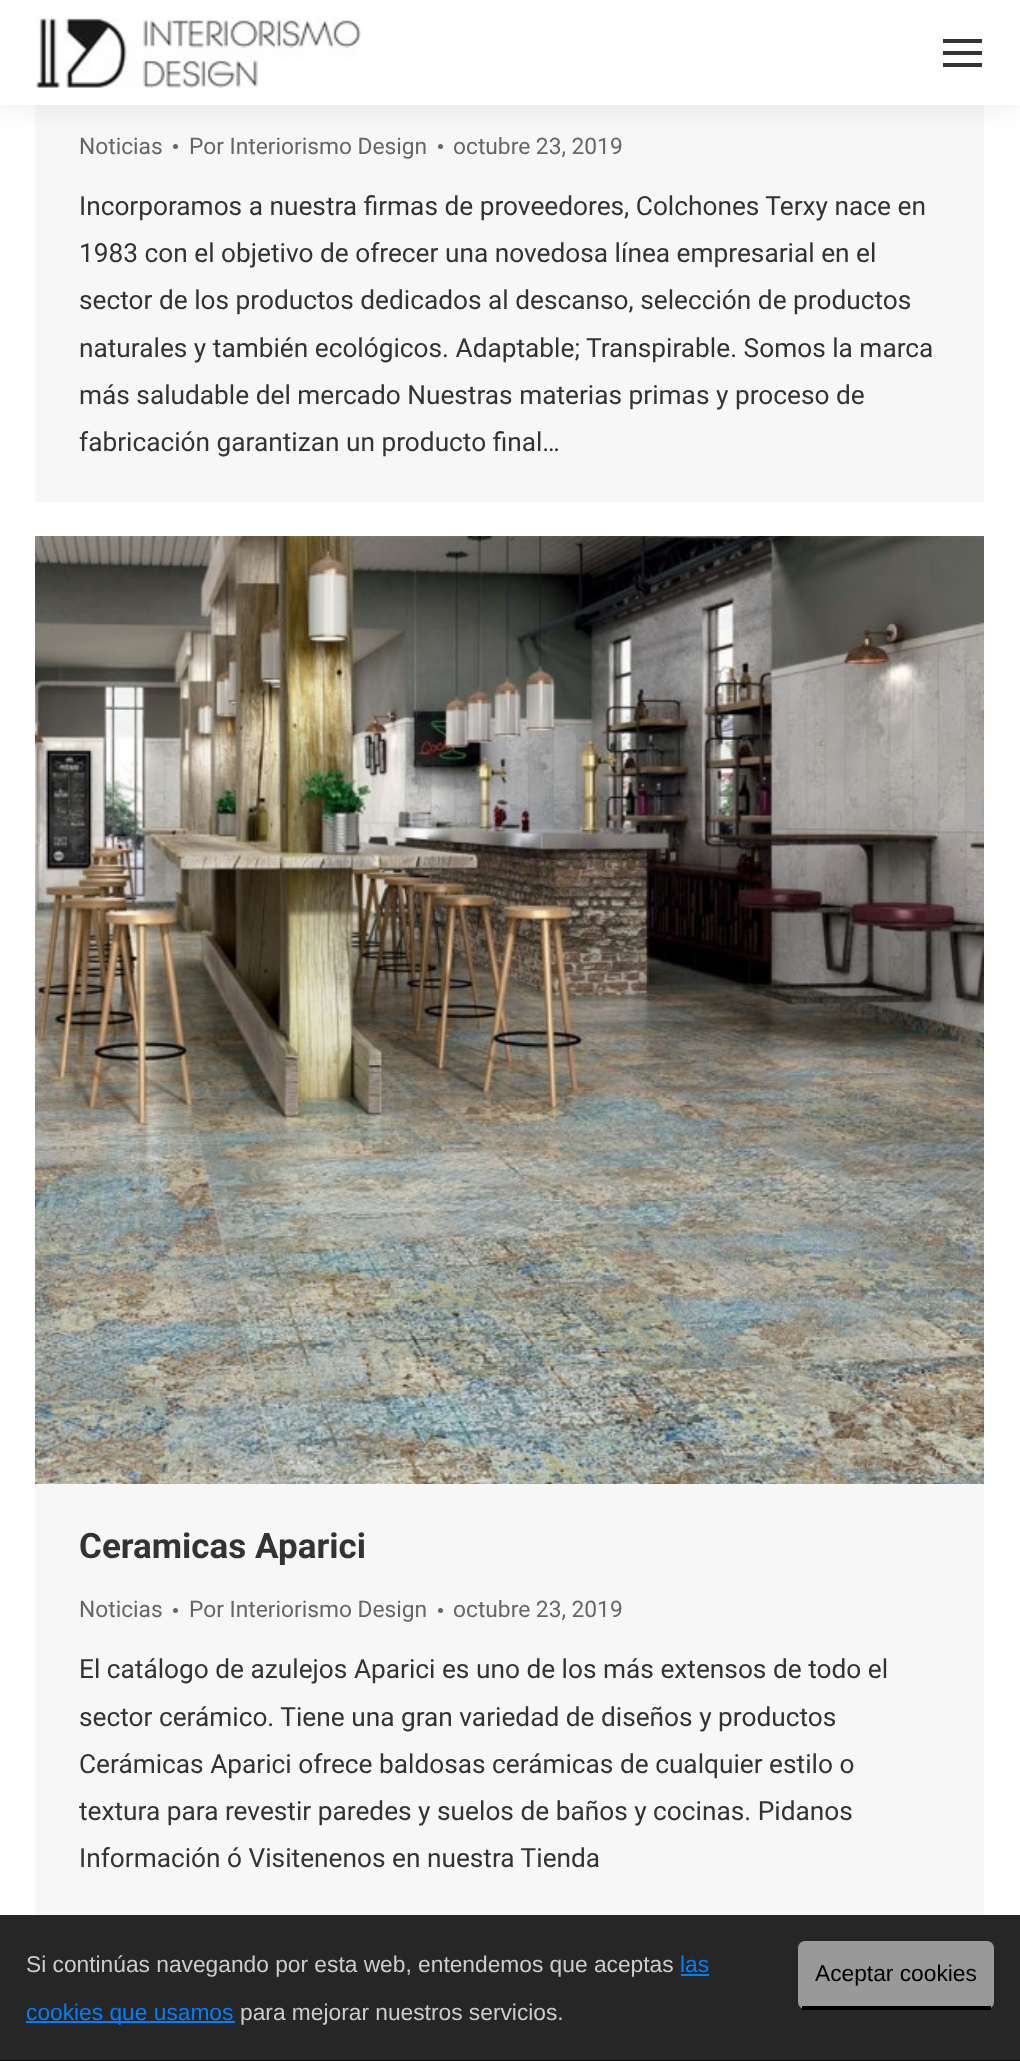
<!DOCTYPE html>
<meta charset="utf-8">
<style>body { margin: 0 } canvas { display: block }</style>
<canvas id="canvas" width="1020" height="2061"></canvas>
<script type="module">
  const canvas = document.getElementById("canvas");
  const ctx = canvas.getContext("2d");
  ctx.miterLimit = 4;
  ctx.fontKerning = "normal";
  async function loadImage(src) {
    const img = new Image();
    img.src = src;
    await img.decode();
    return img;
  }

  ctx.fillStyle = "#ffffff";
  ctx.fillRect(0, 0, 1020, 2061);
  ctx.fillStyle = "#262626";
  ctx.fillRect(0, 1915, 1020, 145);
  ctx.fillStyle = "#f7f7f7";
  ctx.fillRect(35, 105, 949, 397);
  ctx.fillStyle = "#666666";
  ctx.beginPath();
  ctx.arc(175.5, 146.5, 2.5, 0, Math.PI * 2);
  ctx.fill();
  ctx.beginPath();
  ctx.arc(440.5, 146.5, 2.5, 0, Math.PI * 2);
  ctx.fill();
  ctx.fillStyle = "rgba(0, 0, 0, 0.07)";
  ctx.filter = "blur(13px)";
  ctx.beginPath();
  ctx.rect(-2, -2, 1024, 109);
  ctx.fill();
  ctx.filter = "none";
  ctx.fillStyle = "#ffffff";
  ctx.fillRect(0, 0, 1020, 105);
  ctx.drawImage(await loadImage("img1.png"), 35, 17, 326, 71);
  ctx.fillStyle = "#333333";
  ctx.fillRect(943, 39, 39, 4);
  ctx.fillRect(943, 51, 39, 4);
  ctx.fillRect(943, 63, 39, 4);
  ctx.font = "22.75px Roboto";
  ctx.fillStyle = "#666666";
  ctx.fillText("Noticias", 79, 154);
  ctx.fillText("Por Interiorismo Design", 189, 154);
  ctx.fillText("octubre 23, 2019", 453, 154);
  ctx.font = "26.25px Roboto";
  ctx.fillStyle = "#333333";
  ctx.fillText("Incorporamos a nuestra firmas de proveedores, Colchones Terxy nace en", 79, 215);
  ctx.fillText("1983 con el objetivo de ofrecer una novedosa línea empresarial en el", 79, 262);
  ctx.fillText("sector de los productos dedicados al descanso, selección de productos", 79, 309);
  ctx.fillText("naturales y también ecológicos. Adaptable; Transpirable. Somos la marca", 79, 357);
  ctx.fillText("más saludable del mercado Nuestras materias primas y proceso de", 79, 404);
  ctx.fillText("fabricación garantizan un producto final…", 79, 451);
  ctx.fillStyle = "#f7f7f7";
  ctx.fillRect(35, 1484, 949, 431);
  ctx.drawImage(await loadImage("img2.png"), 35, 536, 949, 948);
  ctx.font = "bold 35px Roboto";
  ctx.fillStyle = "#333333";
  ctx.fillText("Ceramicas Aparici", 79, 1558);
  ctx.font = "22.75px Roboto";
  ctx.fillStyle = "#666666";
  ctx.fillText("Noticias", 79, 1617);
  ctx.beginPath();
  ctx.arc(175.5, 1610.5, 2.5, 0, Math.PI * 2);
  ctx.fill();
  ctx.fillText("Por Interiorismo Design", 189, 1617);
  ctx.beginPath();
  ctx.arc(440.5, 1610.5, 2.5, 0, Math.PI * 2);
  ctx.fill();
  ctx.fillText("octubre 23, 2019", 453, 1617);
  ctx.font = "26.25px Roboto";
  ctx.fillStyle = "#333333";
  ctx.fillText("El catálogo de azulejos Aparici es uno de los más extensos de todo el", 79, 1678);
  ctx.fillText("sector cerámico. Tiene una gran variedad de diseños y productos", 79, 1726);
  ctx.fillText("Cerámicas Aparici ofrece baldosas cerámicas de cualquier estilo o", 79, 1773);
  ctx.fillText("textura para revestir paredes y suelos de baños y cocinas. Pidanos", 79, 1820);
  ctx.fillText("Información ó Visitenenos en nuestra Tienda", 79, 1867);
  ctx.fillStyle = "#090908";
  ctx.fillRect(0, 2060, 1020, 1);
  ctx.font = "22.75px Liberation Sans";
  ctx.fillStyle = "#cccccc";
  ctx.fillText("Si continúas navegando por esta web, entendemos que aceptas", 26, 1972);
  ctx.fillStyle = "#007fff";
  ctx.fillText("las", 680, 1972);
  ctx.fillRect(681, 1974, 28, 2);
  ctx.fillStyle = "#999999";
  ctx.beginPath();
  ctx.roundRect(798, 1941, 196, 68, 7);
  ctx.fill();
  ctx.fillStyle = "#000000";
  ctx.fillRect(802, 2006, 189, 4);
  ctx.fillText("Aceptar cookies", 815, 1981);
  ctx.fillStyle = "#007fff";
  ctx.fillRect(26, 2021, 209, 2);
  ctx.fillText("cookies que usamos", 26, 2020);
  ctx.fillStyle = "#cccccc";
  ctx.fillText("para mejorar nuestros servicios.", 240, 2020);
</script>
